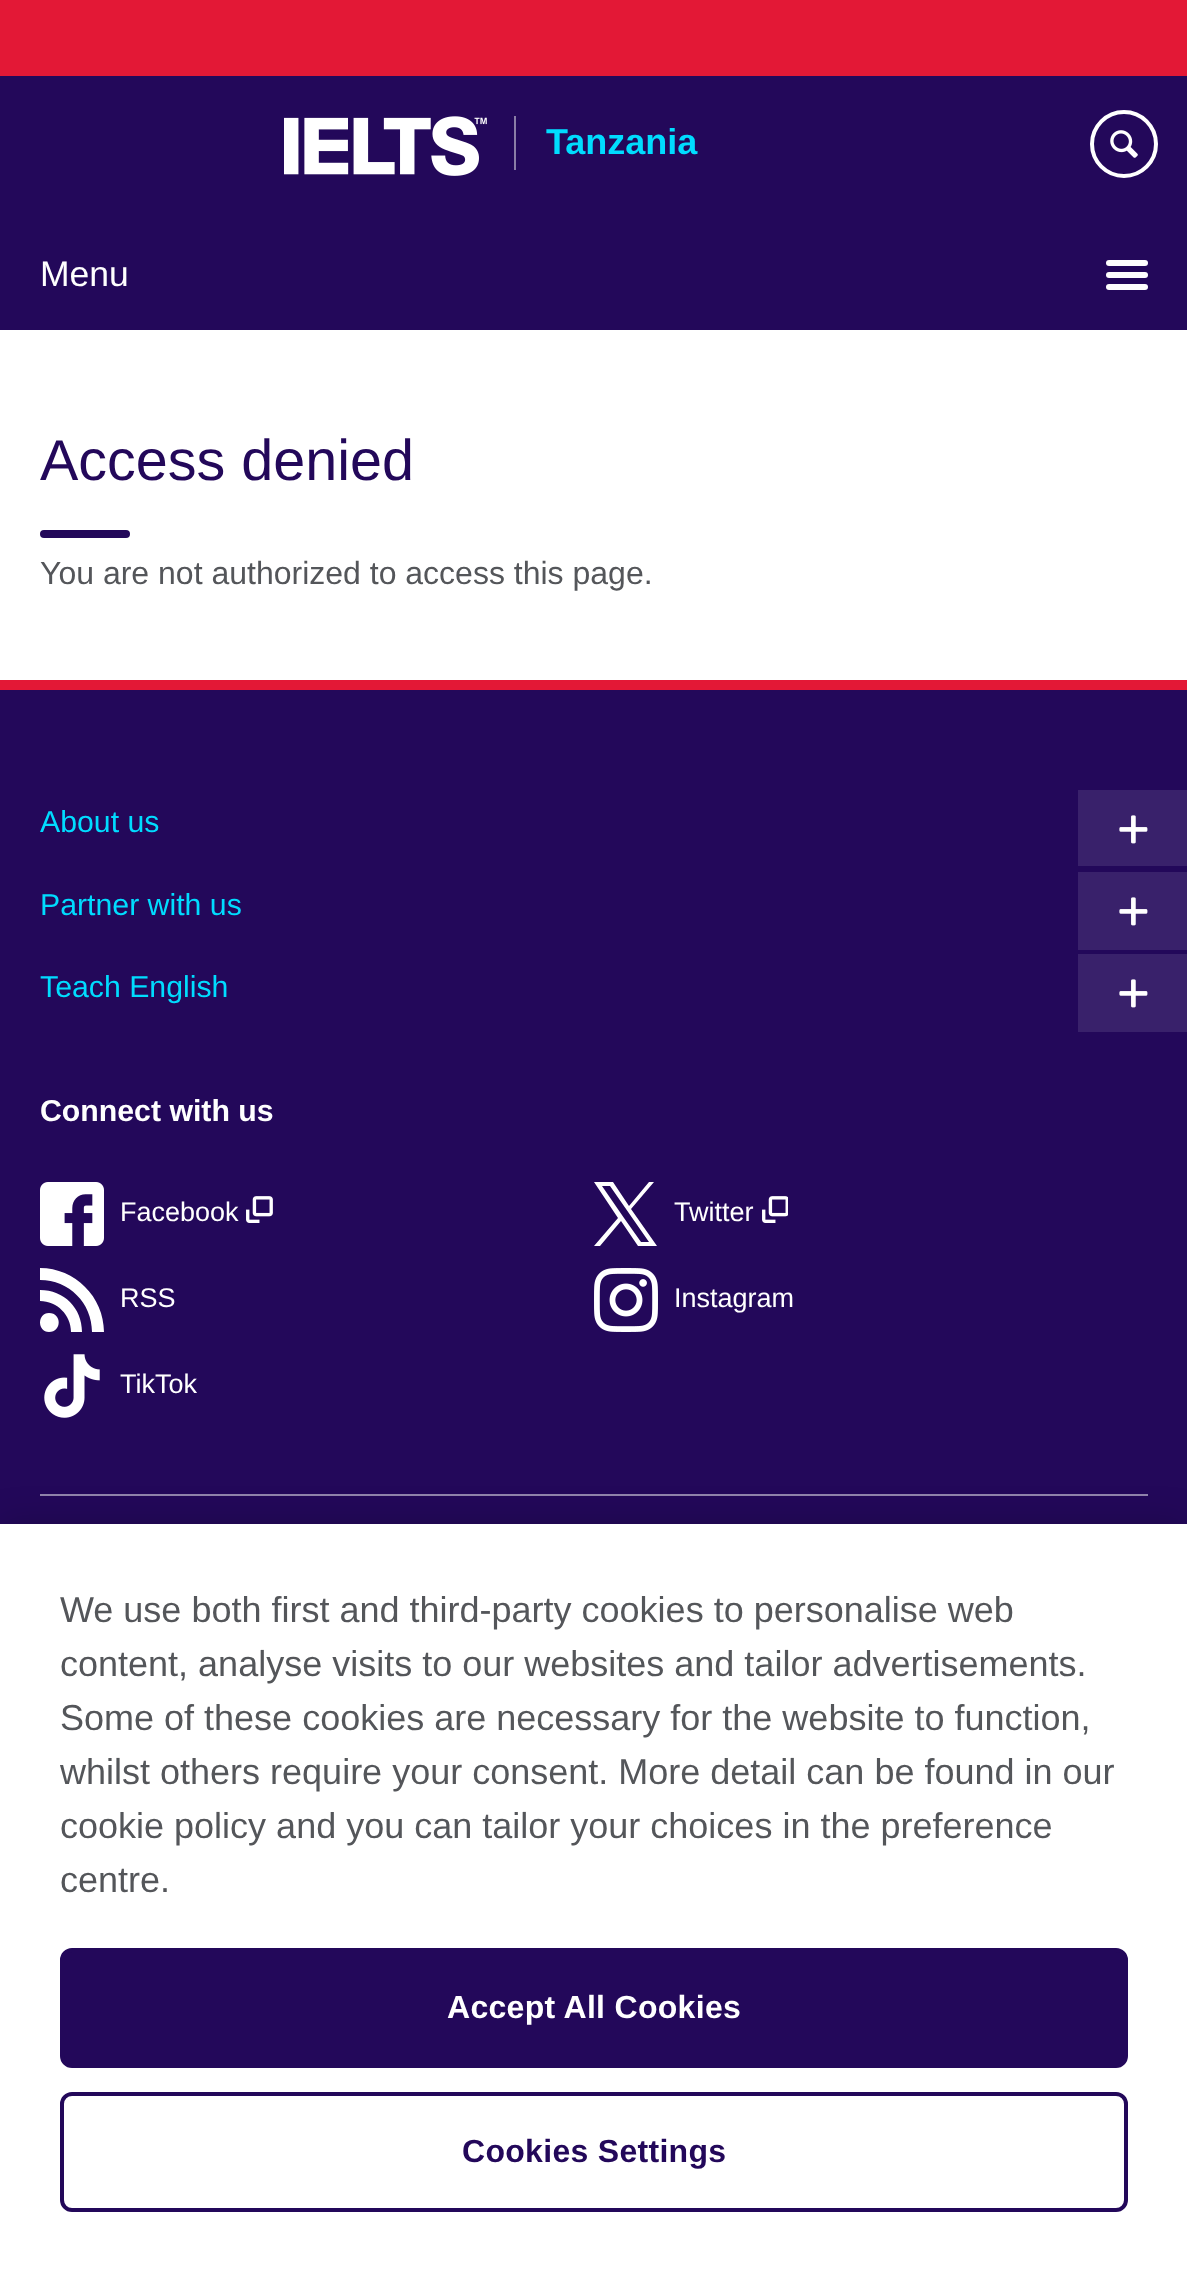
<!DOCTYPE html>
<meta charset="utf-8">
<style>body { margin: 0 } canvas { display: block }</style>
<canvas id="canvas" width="1187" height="2279"></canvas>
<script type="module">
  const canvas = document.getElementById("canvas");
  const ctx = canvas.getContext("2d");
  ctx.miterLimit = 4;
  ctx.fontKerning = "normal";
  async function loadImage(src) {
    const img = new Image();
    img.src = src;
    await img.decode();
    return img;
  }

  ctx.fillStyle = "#ffffff";
  ctx.fillRect(0, 0, 1187, 2279);
  ctx.fillStyle = "#23085a";
  ctx.fillRect(0, 76, 1187, 254);
  ctx.fillStyle = "#e31836";
  ctx.fillRect(0, 0, 1187, 76);
  ctx.drawImage(await loadImage("img1.png"), 284, 116, 203, 60);
  ctx.fillStyle = "#8a7da6";
  ctx.fillRect(514, 116, 2, 54);
  ctx.font = "bold 36px Liberation Sans";
  ctx.fillStyle = "#00dcff";
  ctx.fillText("Tanzania", 546, 154);
  ctx.beginPath();
  ctx.arc(1124, 144, 32, 0, Math.PI * 2);
  ctx.strokeStyle = "#ffffff";
  ctx.lineWidth = 4;
  ctx.stroke();
  ctx.drawImage(await loadImage("img2.png"), 1110, 130, 28, 28);
  ctx.font = "35.5px Liberation Sans";
  ctx.fillStyle = "#ffffff";
  ctx.fillText("Menu", 40, 286);
  ctx.beginPath();
  ctx.roundRect(1106, 260, 42, 6, 3);
  ctx.fill();
  ctx.beginPath();
  ctx.roundRect(1106, 272, 42, 6, 3);
  ctx.fill();
  ctx.beginPath();
  ctx.roundRect(1106, 284, 42, 6, 3);
  ctx.fill();
  ctx.font = "57.5px Liberation Sans";
  ctx.fillStyle = "#23085a";
  ctx.fillText("Access denied", 40, 480);
  ctx.beginPath();
  ctx.roundRect(40, 530, 90, 8, 4);
  ctx.fill();
  ctx.font = "32px Liberation Sans";
  ctx.fillStyle = "#54565a";
  ctx.fillText("You are not authorized to access this page.", 40, 584);
  ctx.fillStyle = "#23085a";
  ctx.fillRect(0, 690, 1187, 834);
  ctx.fillStyle = "#e31836";
  ctx.fillRect(0, 680, 1187, 10);
  ctx.font = "30.25px Liberation Sans";
  ctx.fillStyle = "#00dcff";
  ctx.fillText("About us", 40, 832);
  ctx.fillStyle = "#39216b";
  ctx.fillRect(1078, 790, 109, 76);
  ctx.drawImage(await loadImage("img3.png"), 1119, 815, 29, 29);
  ctx.fillStyle = "#00dcff";
  ctx.fillText("Partner with us", 40, 915);
  ctx.fillStyle = "#39216b";
  ctx.fillRect(1078, 872, 109, 78);
  ctx.drawImage(await loadImage("img3.png"), 1119, 897, 29, 29);
  ctx.fillStyle = "#00dcff";
  ctx.fillText("Teach English", 40, 997);
  ctx.fillStyle = "#39216b";
  ctx.fillRect(1078, 954, 109, 78);
  ctx.drawImage(await loadImage("img3.png"), 1119, 979, 29, 29);
  ctx.font = "bold 30.25px Liberation Sans";
  ctx.fillStyle = "#ffffff";
  ctx.fillText("Connect with us", 40, 1121);
  ctx.drawImage(await loadImage("img4.png"), 40, 1182, 64, 64);
  ctx.font = "27px Liberation Sans";
  ctx.fillText("Facebook", 120, 1221);
  ctx.drawImage(await loadImage("img5.png"), 246, 1196, 27, 27);
  ctx.beginPath();
  ctx.moveTo(631, 1209);
  ctx.lineTo(654, 1182);
  ctx.lineTo(649, 1182);
  ctx.lineTo(629, 1206);
  ctx.lineTo(613, 1182);
  ctx.lineTo(594, 1182);
  ctx.lineTo(618, 1218);
  ctx.lineTo(594, 1246);
  ctx.lineTo(600, 1246);
  ctx.lineTo(621, 1221);
  ctx.lineTo(638, 1246);
  ctx.lineTo(657, 1246);
  ctx.closePath();
  ctx.moveTo(624, 1218);
  ctx.lineTo(602, 1186);
  ctx.lineTo(610, 1186);
  ctx.lineTo(649, 1242);
  ctx.lineTo(641, 1242);
  ctx.closePath();
  ctx.fill();
  ctx.fillText("Twitter", 674, 1221);
  ctx.drawImage(await loadImage("img6.png"), 762, 1196, 26, 27);
  ctx.beginPath();
  ctx.moveTo(49, 1332);
  ctx.bezierCurveTo(37, 1332, 37, 1313, 49, 1313);
  ctx.bezierCurveTo(62, 1313, 62, 1332, 49, 1332);
  ctx.closePath();
  ctx.moveTo(82, 1332);
  ctx.lineTo(71, 1332);
  ctx.bezierCurveTo(71, 1315, 57, 1301, 40, 1301);
  ctx.lineTo(40, 1290);
  ctx.bezierCurveTo(64, 1290, 82, 1308, 82, 1332);
  ctx.closePath();
  ctx.moveTo(104, 1332);
  ctx.lineTo(92, 1332);
  ctx.bezierCurveTo(92, 1303, 69, 1280, 40, 1280);
  ctx.lineTo(40, 1268);
  ctx.bezierCurveTo(75, 1268, 104, 1297, 104, 1332);
  ctx.closePath();
  ctx.fill("evenodd");
  ctx.fillText("RSS", 120, 1307);
  ctx.drawImage(await loadImage("img7.png"), 594, 1268, 64, 64);
  ctx.fillText("Instagram", 674, 1307);
  ctx.drawImage(await loadImage("img8.png"), 44, 1354, 56, 64);
  ctx.fillText("TikTok", 120, 1393);
  ctx.fillStyle = "#9184ad";
  ctx.fillRect(40, 1494, 1108, 2);
  ctx.fillStyle = "rgba(0, 0, 0, 0.2)";
  ctx.filter = "blur(18px)";
  ctx.beginPath();
  ctx.rect(0, 1524, 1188, 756);
  ctx.fill();
  ctx.filter = "none";
  ctx.fillStyle = "#ffffff";
  ctx.fillRect(0, 1524, 1187, 755);
  ctx.font = "36px Liberation Sans";
  ctx.fillStyle = "#54565a";
  ctx.fillText("We use both first and third-party cookies to personalise web", 60, 1622);
  ctx.fillText("content, analyse visits to our websites and tailor advertisements.", 60, 1676);
  ctx.fillText("Some of these cookies are necessary for the website to function,", 60, 1730);
  ctx.fillText("whilst others require your consent. More detail can be found in our", 60, 1784);
  ctx.fillText("cookie policy and you can tailor your choices in the preference", 60, 1838);
  ctx.fillText("centre.", 60, 1892);
  ctx.fillStyle = "#23085a";
  ctx.beginPath();
  ctx.roundRect(62, 1950, 1064, 116, 10);
  ctx.fill();
  ctx.strokeStyle = "#23085a";
  ctx.stroke();
  ctx.letterSpacing = "0.3px";
  ctx.font = "bold 32px Liberation Sans";
  ctx.fillStyle = "#ffffff";
  ctx.fillText("Accept All Cookies", 447, 2018);
  ctx.beginPath();
  ctx.roundRect(62, 2094, 1064, 116, 10);
  ctx.stroke();
  ctx.fillStyle = "#23085a";
  ctx.fillText("Cookies Settings", 462, 2162);
</script>
